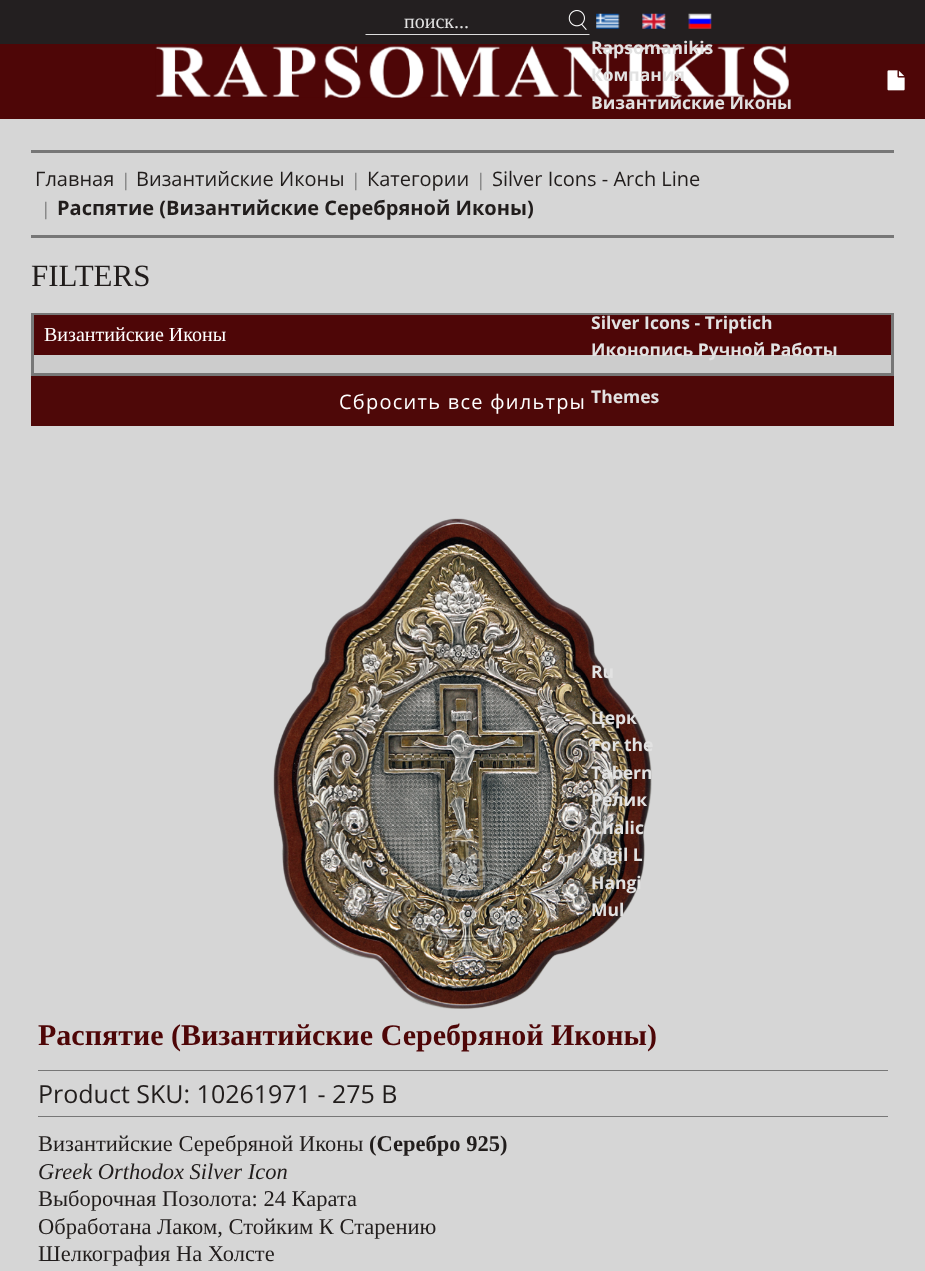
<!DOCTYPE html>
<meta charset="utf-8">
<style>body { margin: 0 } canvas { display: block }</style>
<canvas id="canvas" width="925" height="1271"></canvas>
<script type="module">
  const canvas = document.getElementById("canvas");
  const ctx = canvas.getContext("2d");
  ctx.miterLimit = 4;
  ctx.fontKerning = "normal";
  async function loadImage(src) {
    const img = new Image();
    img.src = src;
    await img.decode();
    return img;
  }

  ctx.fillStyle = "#d6d6d6";
  ctx.fillRect(0, 0, 925, 1271);
  ctx.fillStyle = "#231f20";
  ctx.fillRect(0, 0, 925, 44);
  ctx.fillStyle = "#dddddd";
  ctx.beginPath();
  ctx.moveTo(590, 35);
  ctx.lineTo(365, 35);
  ctx.lineTo(366, 34);
  ctx.lineTo(589, 34);
  ctx.closePath();
  ctx.fill();
  ctx.font = "20px Liberation Serif";
  ctx.fillStyle = "#e2e2e2";
  ctx.fillText("поиск...", 404, 28);
  ctx.drawImage(await loadImage("img1.png"), 568, 10, 19, 20);
  ctx.drawImage(await loadImage("img2.png"), 596, 13, 24, 16);
  ctx.drawImage(await loadImage("img3.png"), 642, 13, 24, 16);
  ctx.drawImage(await loadImage("img4.png"), 688, 13, 24, 16);
  ctx.fillStyle = "#4e0607";
  ctx.fillRect(0, 44, 925, 75);
  ctx.drawImage(await loadImage("img5.png"), 155, 45, 634, 53);
  ctx.font = "bold 17.5px Open Sans";
  ctx.fillStyle = "#e2e2e2";
  ctx.fillText("Rapsomanikis", 591, 54);
  ctx.fillText("Компания", 591, 81);
  ctx.fillText("Византийские Иконы", 591, 109);
  ctx.fillStyle = "#cccccc";
  ctx.fillRect(34, 355, 857, 18);
  ctx.strokeStyle = "#777777";
  ctx.lineWidth = 3;
  ctx.strokeRect(32.5, 314.5, 860, 60);
  ctx.fillStyle = "#4e0607";
  ctx.fillRect(34, 315, 857, 40);
  ctx.fillStyle = "#e2e2e2";
  ctx.fillText("Silver Icons - Triptich", 591, 329);
  ctx.fillText("Иконопись Ручной Работы", 591, 356);
  ctx.fillStyle = "#4e0808";
  ctx.fillRect(31, 376, 863, 50);
  ctx.fillStyle = "#e2e2e2";
  ctx.fillText("Themes", 591, 403);
  ctx.drawImage(await loadImage("img7.png"), 273, 518, 379, 491);
  ctx.fillText("Ru", 591, 678);
  ctx.fillText("Церк", 591, 724);
  ctx.fillText("For the", 591, 751);
  ctx.fillText("Tabern", 591, 779);
  ctx.fillText("Релик", 591, 806);
  ctx.fillText("Chalic", 591, 834);
  ctx.fillText("Vigil L", 591, 861);
  ctx.fillText("Hangi", 591, 889);
  ctx.fillText("Mul", 591, 916);
  ctx.drawImage(await loadImage("img6.png"), 887, 70, 18, 21);
  ctx.fillStyle = "#777777";
  ctx.fillRect(31, 150, 863, 3);
  ctx.fillRect(31, 235, 863, 3);
  ctx.font = "20px Open Sans";
  ctx.fillStyle = "#211d1c";
  ctx.fillText("Главная", 35, 186);
  ctx.font = "17.5px Open Sans";
  ctx.fillStyle = "#797979";
  ctx.fillText("|", 121, 186);
  ctx.font = "20px Open Sans";
  ctx.fillStyle = "#211d1c";
  ctx.fillText("Византийские Иконы", 136, 186);
  ctx.font = "17.5px Open Sans";
  ctx.fillStyle = "#797979";
  ctx.fillText("|", 351, 186);
  ctx.font = "20px Open Sans";
  ctx.fillStyle = "#211d1c";
  ctx.fillText("Категории", 367, 186);
  ctx.font = "17.5px Open Sans";
  ctx.fillStyle = "#797979";
  ctx.fillText("|", 476, 186);
  ctx.font = "20px Open Sans";
  ctx.fillStyle = "#211d1c";
  ctx.fillText("Silver Icons - Arch Line", 492, 186);
  ctx.font = "17.5px Open Sans";
  ctx.fillStyle = "#797979";
  ctx.fillText("|", 41, 215);
  ctx.font = "bold 20px Open Sans";
  ctx.fillStyle = "#211d1c";
  ctx.fillText("Распятие (Византийские Серебряной Иконы)", 57, 215);
  ctx.font = "31px Liberation Serif";
  ctx.fillText("FILTERS", 31, 286);
  ctx.font = "20px Liberation Serif";
  ctx.fillStyle = "#ffffff";
  ctx.fillText("Византийские Иконы", 44, 341);
  ctx.letterSpacing = "1.25px";
  ctx.font = "20px Open Sans";
  ctx.fillText("Сбросить все фильтры", 339, 409);
  ctx.letterSpacing = "0px";
  ctx.font = "bold 30px Liberation Serif";
  ctx.fillStyle = "#4e0607";
  ctx.fillText("Распятие (Византийские Серебряной Иконы)", 38, 1045);
  ctx.fillStyle = "#777777";
  ctx.fillRect(38, 1070, 850, 1);
  ctx.fillRect(38, 1116, 850, 1);
  ctx.font = "25px Open Sans";
  ctx.fillStyle = "#211d1c";
  ctx.fillText("Product SKU: 10261971 - 275 B", 38, 1103);
  ctx.font = "22.5px Liberation Serif";
  ctx.fillText("Византийские Серебряной Иконы", 38, 1151);
  ctx.font = "bold 22.5px Liberation Serif";
  ctx.fillText("(Серебро 925)", 369, 1151);
  ctx.font = "italic 22.5px Liberation Serif";
  ctx.fillText("Greek Orthodox Silver Icon", 38, 1179);
  ctx.font = "22.5px Liberation Serif";
  ctx.fillText("Выборочная Позолота: 24 Карата", 38, 1206);
  ctx.fillText("Обработана Лаком, Стойким К Старению", 38, 1234);
  ctx.fillText("Шелкография На Холсте", 38, 1261);
</script>
